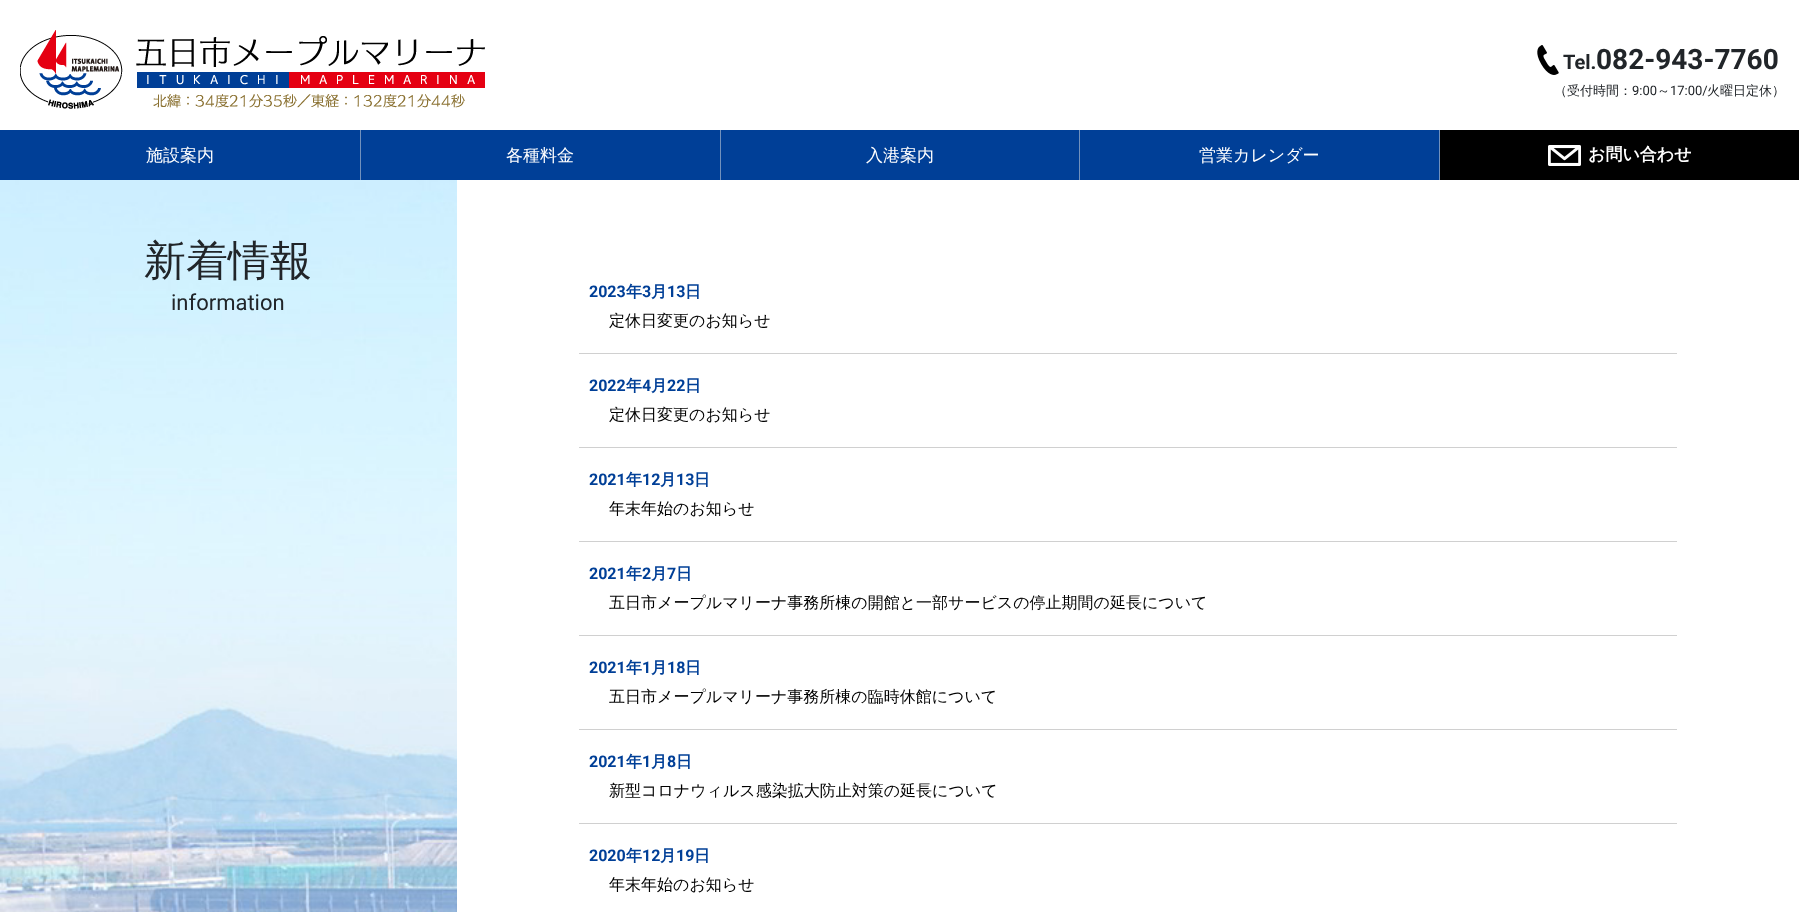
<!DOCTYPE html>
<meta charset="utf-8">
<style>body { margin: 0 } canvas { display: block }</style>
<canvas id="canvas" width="1799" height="912"></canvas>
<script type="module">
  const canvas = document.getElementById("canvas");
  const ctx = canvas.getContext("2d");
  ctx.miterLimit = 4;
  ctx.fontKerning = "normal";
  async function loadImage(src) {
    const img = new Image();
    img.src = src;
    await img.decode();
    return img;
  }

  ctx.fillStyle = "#ffffff";
  ctx.fillRect(0, 0, 1799, 912);
  ctx.drawImage(await loadImage("img1.png"), 20, 30, 465, 79);
  ctx.drawImage(await loadImage("img2.png"), 1537, 45, 22, 30);
  ctx.font = "bold 20px Roboto";
  ctx.fillStyle = "#212529";
  ctx.fillText("Tel.", 1563, 69);
  ctx.font = "bold 28px Roboto";
  ctx.fillText("082-943-7760", 1596, 69);
  ctx.font = "500 13px WenQuanYi Zen Hei";
  ctx.fillText("（受付時間：", 1554, 95);
  ctx.font = "13px Roboto";
  ctx.fillText("9:00", 1632, 95);
  ctx.font = "500 13px WenQuanYi Zen Hei";
  ctx.fillText("～", 1657, 95);
  ctx.font = "13px Roboto";
  ctx.fillText("17:00/", 1670, 95);
  ctx.font = "500 13px WenQuanYi Zen Hei";
  ctx.fillText("火曜日定休）", 1707, 95);
  ctx.fillStyle = "#003f97";
  ctx.fillRect(0, 130, 1439, 50);
  ctx.font = "500 17px WenQuanYi Zen Hei";
  ctx.fillStyle = "#ffffff";
  ctx.fillText("施設案内", 146, 161);
  ctx.fillStyle = "#7291bc";
  ctx.fillRect(360, 130, 1, 50);
  ctx.fillStyle = "#ffffff";
  ctx.fillText("各種料金", 506, 161);
  ctx.fillStyle = "#7291bc";
  ctx.fillRect(720, 130, 1, 50);
  ctx.fillStyle = "#ffffff";
  ctx.fillText("入港案内", 866, 161);
  ctx.fillStyle = "#7291bc";
  ctx.fillRect(1079, 130, 1, 50);
  ctx.fillStyle = "#ffffff";
  ctx.fillText("営業カレンダー", 1199, 161);
  ctx.fillStyle = "#7291bc";
  ctx.fillRect(1439, 130, 1, 50);
  ctx.fillStyle = "#000000";
  ctx.fillRect(1440, 130, 359, 50);
  ctx.drawImage(await loadImage("img3.png"), 1548, 145, 33, 21);
  ctx.font = "bold 17px WenQuanYi Zen Hei";
  ctx.fillStyle = "#ffffff";
  ctx.fillText("お問い合わせ", 1588, 160);
  ctx.drawImage(await loadImage("img4.png"), 0, 180, 457, 732);
  ctx.font = "500 42px WenQuanYi Zen Hei";
  ctx.fillStyle = "#212529";
  ctx.fillText("新着情報", 144, 275);
  ctx.font = "22px Roboto";
  ctx.fillText("information", 171, 310);
  ctx.fillStyle = "#d0d0d0";
  ctx.fillRect(579, 353, 1098, 1);
  ctx.font = "bold 16px Roboto";
  ctx.fillStyle = "#003f97";
  ctx.fillText("2023", 589, 297);
  ctx.font = "bold 16px WenQuanYi Zen Hei";
  ctx.fillText("年", 626, 297);
  ctx.font = "bold 16px Roboto";
  ctx.fillText("3", 642, 297);
  ctx.font = "bold 16px WenQuanYi Zen Hei";
  ctx.fillText("月", 651, 297);
  ctx.font = "bold 16px Roboto";
  ctx.fillText("13", 667, 297);
  ctx.font = "bold 16px WenQuanYi Zen Hei";
  ctx.fillText("日", 685, 297);
  ctx.font = "500 16px WenQuanYi Zen Hei";
  ctx.fillStyle = "#000000";
  ctx.fillText("定休日変更のお知らせ", 609, 326);
  ctx.fillStyle = "#d0d0d0";
  ctx.fillRect(579, 447, 1098, 1);
  ctx.font = "bold 16px Roboto";
  ctx.fillStyle = "#003f97";
  ctx.fillText("2022", 589, 391);
  ctx.font = "bold 16px WenQuanYi Zen Hei";
  ctx.fillText("年", 626, 391);
  ctx.font = "bold 16px Roboto";
  ctx.fillText("4", 642, 391);
  ctx.font = "bold 16px WenQuanYi Zen Hei";
  ctx.fillText("月", 651, 391);
  ctx.font = "bold 16px Roboto";
  ctx.fillText("22", 667, 391);
  ctx.font = "bold 16px WenQuanYi Zen Hei";
  ctx.fillText("日", 685, 391);
  ctx.font = "500 16px WenQuanYi Zen Hei";
  ctx.fillStyle = "#000000";
  ctx.fillText("定休日変更のお知らせ", 609, 420);
  ctx.fillStyle = "#d0d0d0";
  ctx.fillRect(579, 541, 1098, 1);
  ctx.font = "bold 16px Roboto";
  ctx.fillStyle = "#003f97";
  ctx.fillText("2021", 589, 485);
  ctx.font = "bold 16px WenQuanYi Zen Hei";
  ctx.fillText("年", 626, 485);
  ctx.font = "bold 16px Roboto";
  ctx.fillText("12", 642, 485);
  ctx.font = "bold 16px WenQuanYi Zen Hei";
  ctx.fillText("月", 660, 485);
  ctx.font = "bold 16px Roboto";
  ctx.fillText("13", 676, 485);
  ctx.font = "bold 16px WenQuanYi Zen Hei";
  ctx.fillText("日", 694, 485);
  ctx.font = "500 16px WenQuanYi Zen Hei";
  ctx.fillStyle = "#000000";
  ctx.fillText("年末年始のお知らせ", 609, 514);
  ctx.fillStyle = "#d0d0d0";
  ctx.fillRect(579, 635, 1098, 1);
  ctx.font = "bold 16px Roboto";
  ctx.fillStyle = "#003f97";
  ctx.fillText("2021", 589, 579);
  ctx.font = "bold 16px WenQuanYi Zen Hei";
  ctx.fillText("年", 626, 579);
  ctx.font = "bold 16px Roboto";
  ctx.fillText("2", 642, 579);
  ctx.font = "bold 16px WenQuanYi Zen Hei";
  ctx.fillText("月", 651, 579);
  ctx.font = "bold 16px Roboto";
  ctx.fillText("7", 667, 579);
  ctx.font = "bold 16px WenQuanYi Zen Hei";
  ctx.fillText("日", 676, 579);
  ctx.font = "500 16px WenQuanYi Zen Hei";
  ctx.fillStyle = "#000000";
  ctx.fillText("五日市メープルマリーナ事務所棟の開館と一部サービスの停止期間の延長について", 609, 608);
  ctx.fillStyle = "#d0d0d0";
  ctx.fillRect(579, 729, 1098, 1);
  ctx.font = "bold 16px Roboto";
  ctx.fillStyle = "#003f97";
  ctx.fillText("2021", 589, 673);
  ctx.font = "bold 16px WenQuanYi Zen Hei";
  ctx.fillText("年", 626, 673);
  ctx.font = "bold 16px Roboto";
  ctx.fillText("1", 642, 673);
  ctx.font = "bold 16px WenQuanYi Zen Hei";
  ctx.fillText("月", 651, 673);
  ctx.font = "bold 16px Roboto";
  ctx.fillText("18", 667, 673);
  ctx.font = "bold 16px WenQuanYi Zen Hei";
  ctx.fillText("日", 685, 673);
  ctx.font = "500 16px WenQuanYi Zen Hei";
  ctx.fillStyle = "#000000";
  ctx.fillText("五日市メープルマリーナ事務所棟の臨時休館について", 609, 702);
  ctx.fillStyle = "#d0d0d0";
  ctx.fillRect(579, 823, 1098, 1);
  ctx.font = "bold 16px Roboto";
  ctx.fillStyle = "#003f97";
  ctx.fillText("2021", 589, 767);
  ctx.font = "bold 16px WenQuanYi Zen Hei";
  ctx.fillText("年", 626, 767);
  ctx.font = "bold 16px Roboto";
  ctx.fillText("1", 642, 767);
  ctx.font = "bold 16px WenQuanYi Zen Hei";
  ctx.fillText("月", 651, 767);
  ctx.font = "bold 16px Roboto";
  ctx.fillText("8", 667, 767);
  ctx.font = "bold 16px WenQuanYi Zen Hei";
  ctx.fillText("日", 676, 767);
  ctx.font = "500 16px WenQuanYi Zen Hei";
  ctx.fillStyle = "#000000";
  ctx.fillText("新型コロナウィルス感染拡大防止対策の延長について", 609, 796);
  ctx.font = "bold 16px Roboto";
  ctx.fillStyle = "#003f97";
  ctx.fillText("2020", 589, 861);
  ctx.font = "bold 16px WenQuanYi Zen Hei";
  ctx.fillText("年", 626, 861);
  ctx.font = "bold 16px Roboto";
  ctx.fillText("12", 642, 861);
  ctx.font = "bold 16px WenQuanYi Zen Hei";
  ctx.fillText("月", 660, 861);
  ctx.font = "bold 16px Roboto";
  ctx.fillText("19", 676, 861);
  ctx.font = "bold 16px WenQuanYi Zen Hei";
  ctx.fillText("日", 694, 861);
  ctx.font = "500 16px WenQuanYi Zen Hei";
  ctx.fillStyle = "#000000";
  ctx.fillText("年末年始のお知らせ", 609, 890);
</script>
